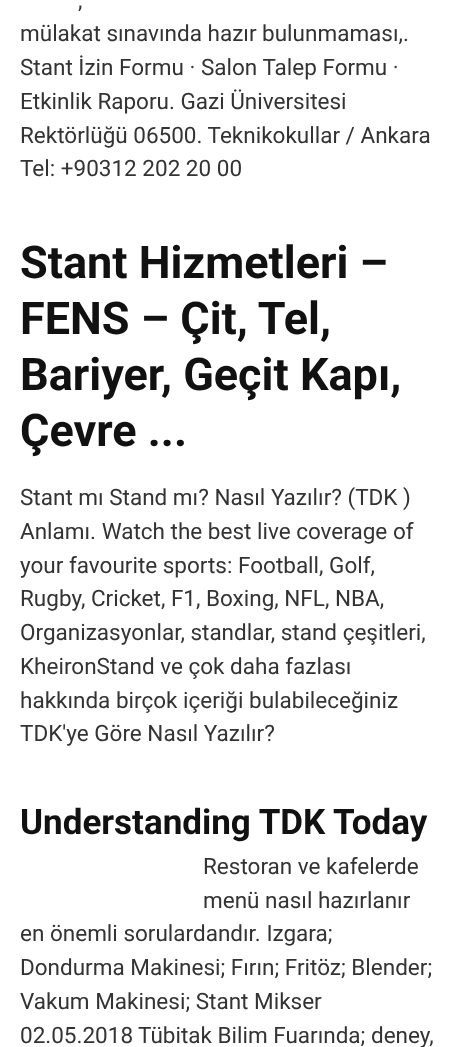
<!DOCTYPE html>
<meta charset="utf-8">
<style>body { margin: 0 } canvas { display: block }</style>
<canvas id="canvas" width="456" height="1047"></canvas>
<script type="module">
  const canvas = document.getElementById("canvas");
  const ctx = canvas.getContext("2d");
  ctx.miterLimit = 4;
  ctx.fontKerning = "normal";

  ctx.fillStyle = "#ffffff";
  ctx.fillRect(0, 0, 456, 1047);
  ctx.font = "22.5px Roboto";
  ctx.fillStyle = "#333333";
  ctx.fillText(",", 78, 8);
  ctx.fillText("mülakat sınavında hazır bulunmaması,.", 20, 41);
  ctx.fillText("Stant İzin Formu · Salon Talep Formu ·", 20, 75);
  ctx.fillText("Etkinlik Raporu. Gazi Üniversitesi", 20, 109);
  ctx.fillText("Rektörlüğü 06500. Teknikokullar / Ankara", 20, 143);
  ctx.fillText("Tel: +90312 202 20 00", 20, 176);
  ctx.font = "bold 45px Roboto";
  ctx.fillStyle = "#111111";
  ctx.fillText("Stant Hizmetleri –", 20, 278);
  ctx.fillText("FENS – Çit, Tel,", 20, 334);
  ctx.fillText("Bariyer, Geçit Kapı,", 20, 390);
  ctx.fillText("Çevre ...", 20, 446);
  ctx.font = "22.5px Roboto";
  ctx.fillStyle = "#333333";
  ctx.fillText("Stant mı Stand mı? Nasıl Yazılır? (TDK )", 20, 505);
  ctx.fillText("Anlamı. Watch the best live coverage of", 20, 539);
  ctx.fillText("your favourite sports: Football, Golf,", 20, 573);
  ctx.fillText("Rugby, Cricket, F1, Boxing, NFL, NBA,", 20, 606);
  ctx.fillText("Organizasyonlar, standlar, stand çeşitleri,", 20, 640);
  ctx.fillText("KheironStand ve çok daha fazlası", 20, 674);
  ctx.fillText("hakkında birçok içeriği bulabileceğiniz", 20, 708);
  ctx.fillText("TDK'ye Göre Nasıl Yazılır?", 20, 741);
  ctx.font = "bold 35px Roboto";
  ctx.fillStyle = "#111111";
  ctx.fillText("Understanding TDK Today", 20, 834);
  ctx.font = "22.5px Roboto";
  ctx.fillStyle = "#333333";
  ctx.fillText("Restoran ve kafelerde", 203, 874);
  ctx.fillText("menü nasıl hazırlanır", 203, 908);
  ctx.fillText("en önemli sorulardandır. Izgara;", 20, 941);
  ctx.fillText("Dondurma Makinesi; Fırın; Fritöz; Blender;", 20, 975);
  ctx.fillText("Vakum Makinesi; Stant Mikser", 20, 1009);
  ctx.fillText("02.05.2018", 20, 1043);
  ctx.fillText("Tübitak Bilim Fuarında; deney,", 138, 1043);
</script>
